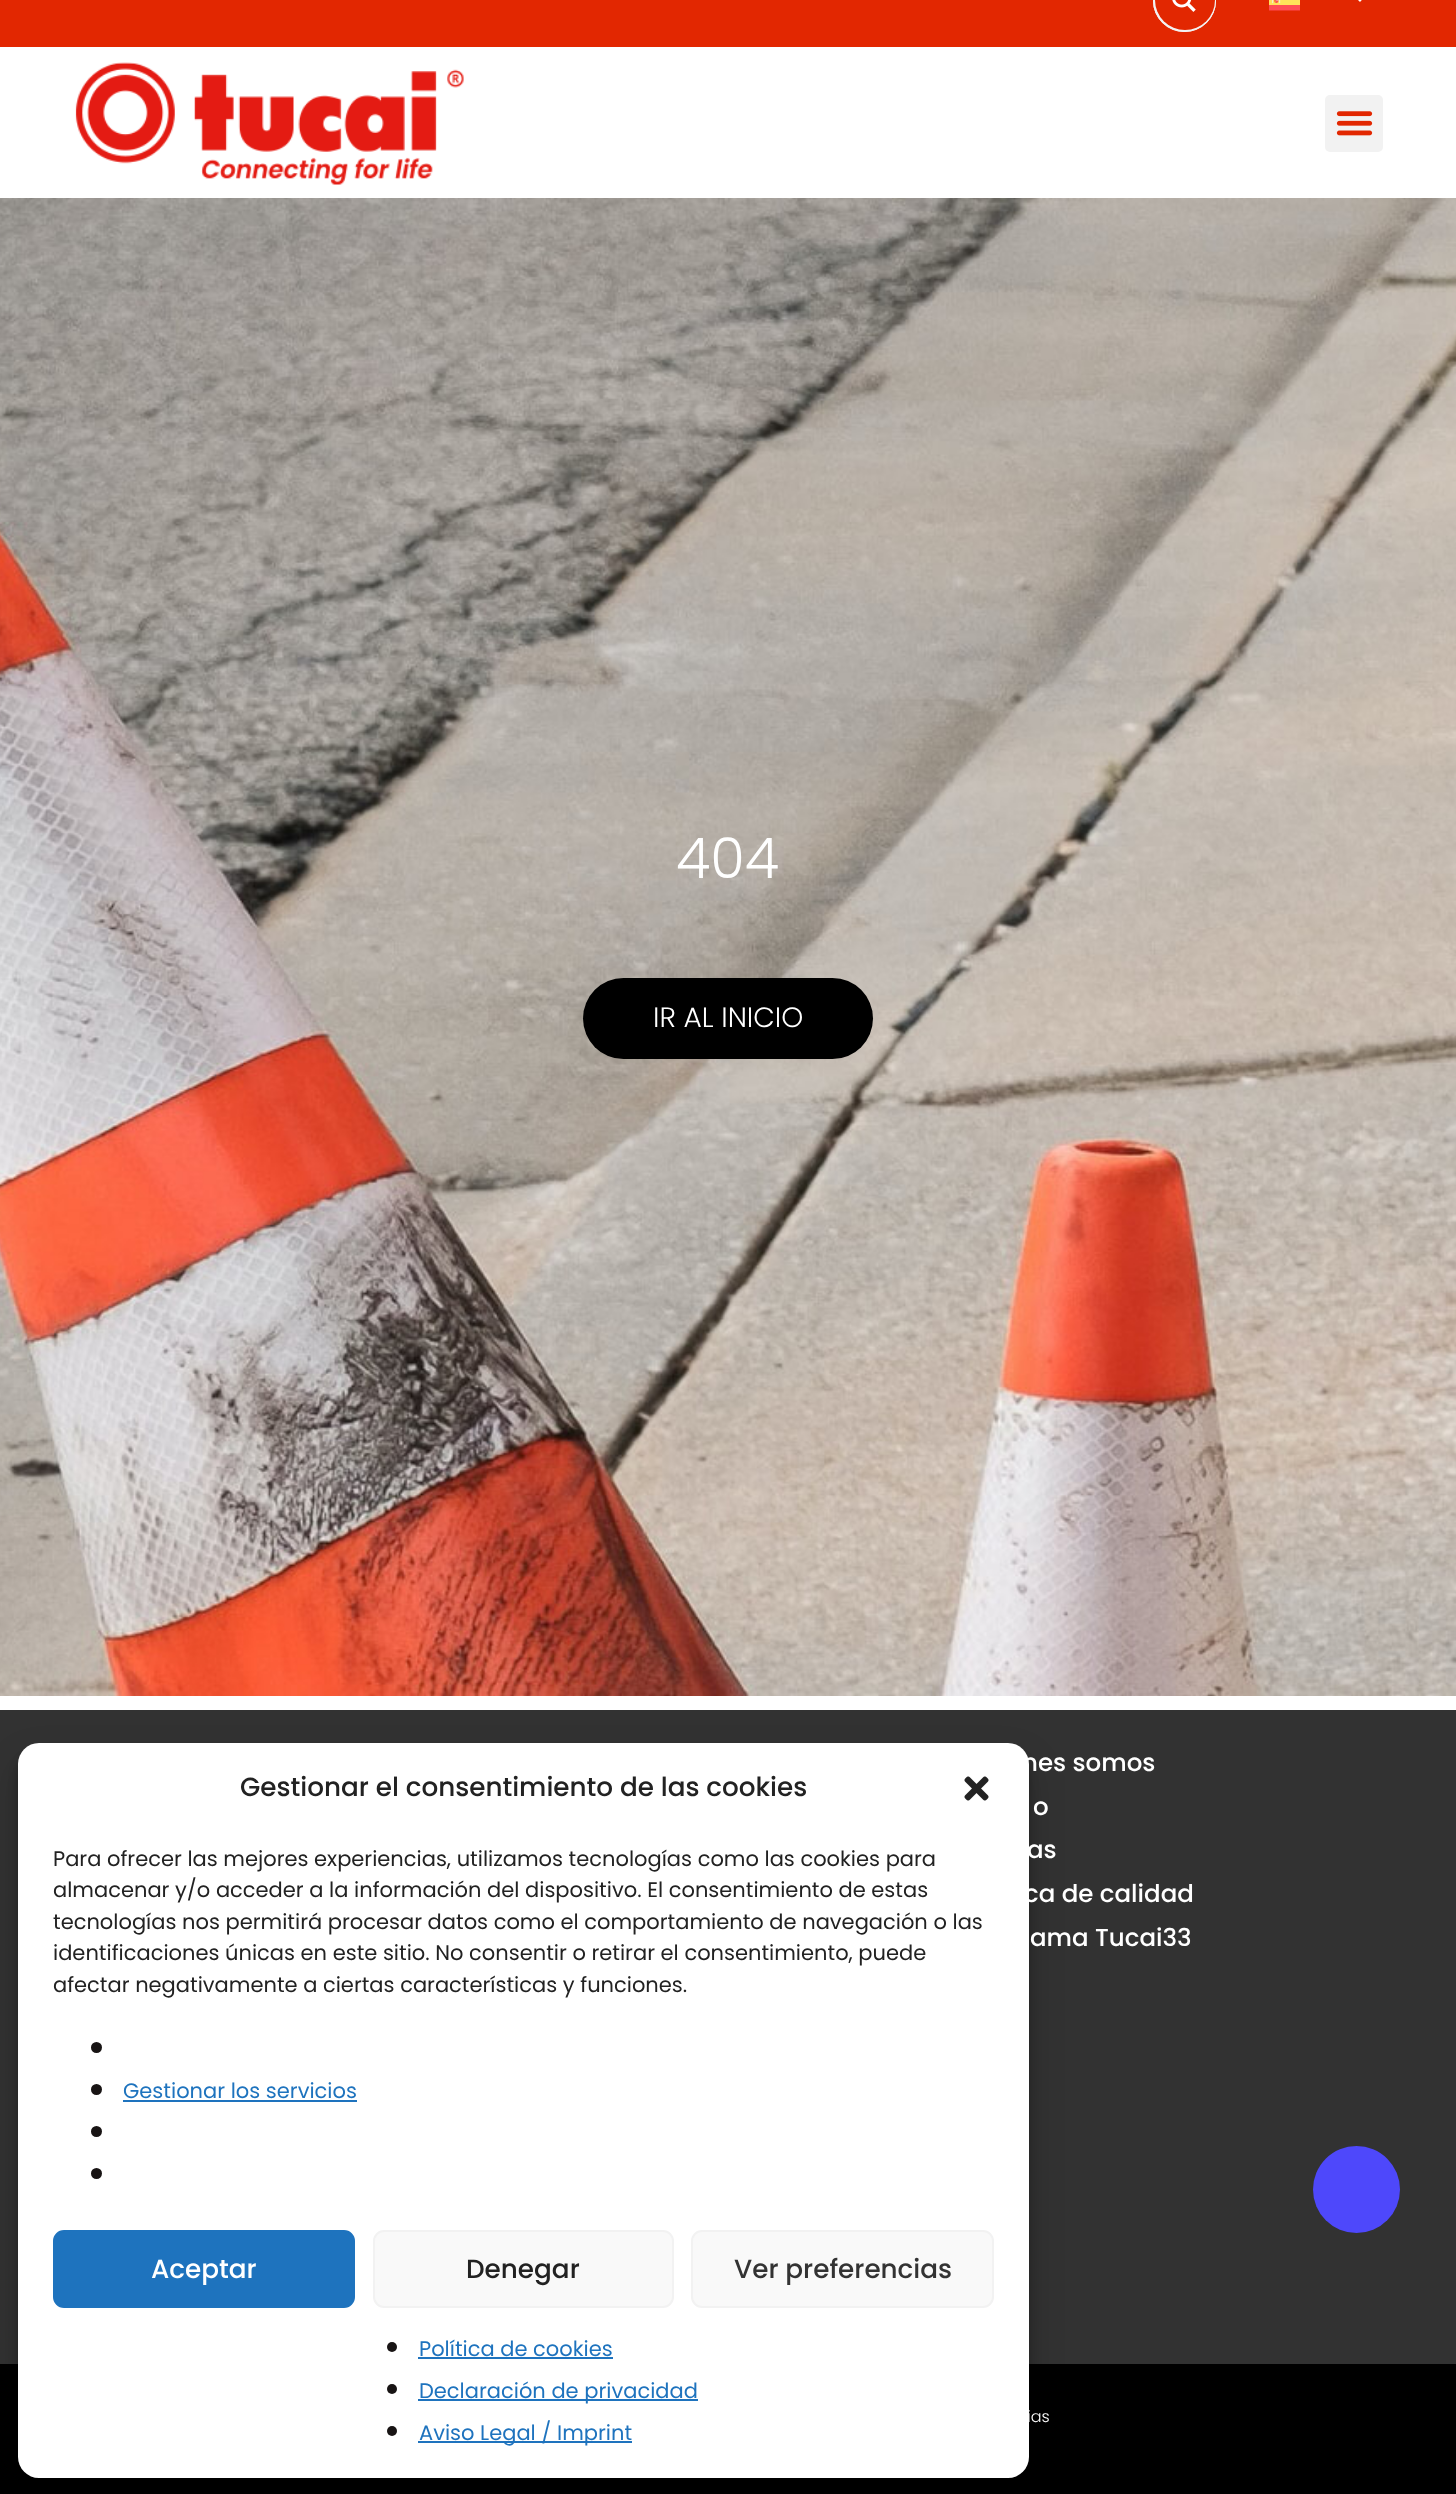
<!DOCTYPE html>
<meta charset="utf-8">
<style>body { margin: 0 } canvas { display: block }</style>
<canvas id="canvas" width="1456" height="2494"></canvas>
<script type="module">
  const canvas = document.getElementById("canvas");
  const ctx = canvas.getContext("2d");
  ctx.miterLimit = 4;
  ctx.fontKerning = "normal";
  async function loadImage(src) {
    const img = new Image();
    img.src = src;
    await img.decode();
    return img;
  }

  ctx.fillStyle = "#ffffff";
  ctx.fillRect(0, 0, 1456, 2494);
  ctx.fillStyle = "#e22701";
  ctx.fillRect(0, 0, 1456, 47);
  ctx.fillStyle = "#ffffff";
  ctx.beginPath();
  ctx.arc(1184.5, 0.5, 31.5, 0, Math.PI * 2);
  ctx.fill();
  ctx.fillStyle = "rgba(255, 255, 255, 0.5)";
  ctx.beginPath();
  ctx.arc(1184.5, 0.5, 30.5, 0, Math.PI * 2);
  ctx.fill();
  ctx.strokeStyle = "#f2f2f2";
  ctx.lineWidth = 2;
  ctx.stroke();
  ctx.fillStyle = "#e22701";
  ctx.beginPath();
  ctx.arc(1185, 0, 30, 0, Math.PI * 2);
  ctx.fill();
  ctx.drawImage(await loadImage("img1.png"), 1172, 0, 24, 12);
  ctx.drawImage(await loadImage("img2.png"), 1269, 0, 31, 11);
  ctx.fillStyle = "#ffffff";
  ctx.beginPath();
  ctx.moveTo(1354.5, -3.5);
  ctx.lineTo(1365, -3.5);
  ctx.lineTo(1360, 2);
  ctx.closePath();
  ctx.fill();
  ctx.drawImage(await loadImage("img3.png"), 75, 62, 389, 123);
  ctx.fillStyle = "#f2f2f2";
  ctx.beginPath();
  ctx.roundRect(1325, 95, 58, 57, 5);
  ctx.fill();
  ctx.drawImage(await loadImage("img4.png"), 1336, 111, 37, 25);
  ctx.drawImage(await loadImage("img5.png"), 0, 198, 1456, 1498);
  ctx.font = "300 56px Poppins";
  ctx.fillStyle = "#ffffff";
  ctx.fillText("404", 676, 878);
  ctx.fillStyle = "#000000";
  ctx.beginPath();
  ctx.roundRect(583, 978, 290, 81, 40.5);
  ctx.fill();
  ctx.font = "300 28px Poppins";
  ctx.fillStyle = "#ffffff";
  ctx.fillText("IR AL INICIO", 653, 1027);
  ctx.fillStyle = "#323232";
  ctx.fillRect(0, 1710, 1456, 654);
  ctx.fillStyle = "#000000";
  ctx.fillRect(0, 2364, 1456, 130);
  ctx.fillStyle = "rgba(0, 0, 0, 0.23)";
  ctx.filter = "blur(5px)";
  ctx.beginPath();
  ctx.roundRect(18, 1754, 1011, 735, 21);
  ctx.fill();
  ctx.filter = "none";
  ctx.fillStyle = "rgba(0, 0, 0, 0.19)";
  ctx.filter = "blur(17.5px)";
  ctx.beginPath();
  ctx.roundRect(18, 1761, 1011, 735, 21);
  ctx.fill();
  ctx.filter = "none";
  ctx.fillStyle = "#ffffff";
  ctx.beginPath();
  ctx.roundRect(18, 1743, 1011, 735, 21);
  ctx.fill();
  ctx.font = "500 26.25px Poppins";
  ctx.fillStyle = "#222222";
  ctx.fillText("Gestionar el consentimiento de las cookies", 240, 1796);
  ctx.drawImage(await loadImage("img6.png"), 964, 1776, 25, 25);
  ctx.font = "21px Poppins";
  ctx.fillText("Para ofrecer las mejores experiencias, utilizamos tecnologías como las cookies para", 53, 1866);
  ctx.fillText("almacenar y/o acceder a la información del dispositivo. El consentimiento de estas", 53, 1897);
  ctx.fillText("tecnologías nos permitirá procesar datos como el comportamiento de navegación o las", 53, 1929);
  ctx.fillText("identificaciones únicas en este sitio. No consentir o retirar el consentimiento, puede", 53, 1960);
  ctx.fillText("afectar negativamente a ciertas características y funciones.", 53, 1992);
  ctx.fillStyle = "#181414";
  ctx.beginPath();
  ctx.arc(96.5, 2047.5, 5.5, 0, Math.PI * 2);
  ctx.fill();
  ctx.beginPath();
  ctx.arc(96.5, 2089.5, 5.5, 0, Math.PI * 2);
  ctx.fill();
  ctx.fillStyle = "#1e73be";
  ctx.fillText("Gestionar los servicios", 123, 2098);
  ctx.fillRect(123, 2100, 234, 2);
  ctx.fillStyle = "#181414";
  ctx.beginPath();
  ctx.arc(96.5, 2131.5, 5.5, 0, Math.PI * 2);
  ctx.fill();
  ctx.beginPath();
  ctx.arc(96.5, 2173.5, 5.5, 0, Math.PI * 2);
  ctx.fill();
  ctx.fillStyle = "#1e73be";
  ctx.beginPath();
  ctx.roundRect(54, 2231, 300, 76, 10);
  ctx.fill();
  ctx.strokeStyle = "#1e73be";
  ctx.stroke();
  ctx.font = "500 26.25px Poppins";
  ctx.fillStyle = "#ffffff";
  ctx.fillText("Aceptar", 151, 2278);
  ctx.fillStyle = "#f9f9f9";
  ctx.beginPath();
  ctx.roundRect(374, 2231, 299, 76, 10);
  ctx.fill();
  ctx.strokeStyle = "#f2f2f2";
  ctx.stroke();
  ctx.fillStyle = "#222222";
  ctx.fillText("Denegar", 466, 2278);
  ctx.fillStyle = "#f9f9f9";
  ctx.beginPath();
  ctx.roundRect(692, 2231, 301, 76, 10);
  ctx.fill();
  ctx.stroke();
  ctx.fillStyle = "#333333";
  ctx.fillText("Ver preferencias", 734, 2278);
  ctx.fillStyle = "#181414";
  ctx.beginPath();
  ctx.arc(392, 2347, 5, 0, Math.PI * 2);
  ctx.fill();
  ctx.font = "21px Poppins";
  ctx.fillStyle = "#1e73be";
  ctx.fillText("Política de cookies", 419, 2356);
  ctx.fillRect(418, 2357, 195, 2);
  ctx.fillStyle = "#181414";
  ctx.beginPath();
  ctx.arc(392, 2389, 5, 0, Math.PI * 2);
  ctx.fill();
  ctx.fillStyle = "#1e73be";
  ctx.fillRect(418, 2399, 280, 2);
  ctx.fillText("Declaración de privacidad", 419, 2398);
  ctx.fillStyle = "#181414";
  ctx.beginPath();
  ctx.arc(392, 2431, 5, 0, Math.PI * 2);
  ctx.fill();
  ctx.fillStyle = "#1e73be";
  ctx.fillRect(418, 2441, 214, 2);
  ctx.fillText("Aviso Legal / Imprint", 419, 2440);
  ctx.font = "500 24.5px Poppins";
  ctx.fillStyle = "#ffffff";
  ctx.fillText("nes somos", 1022, 1771);
  ctx.fillText("o", 1033, 1815);
  ctx.fillText("as", 1027, 1858);
  ctx.fillText("ca de calidad", 1024, 1902);
  ctx.fillText("ama Tucai33", 1030, 1946);
  ctx.fillStyle = "#4e48fb";
  ctx.beginPath();
  ctx.arc(1356.5, 2189.5, 43.5, 0, Math.PI * 2);
  ctx.fill();
  ctx.font = "300 16px Poppins";
  ctx.fillStyle = "#ffffff";
  ctx.fillText("ias", 1027, 2422);
</script>
